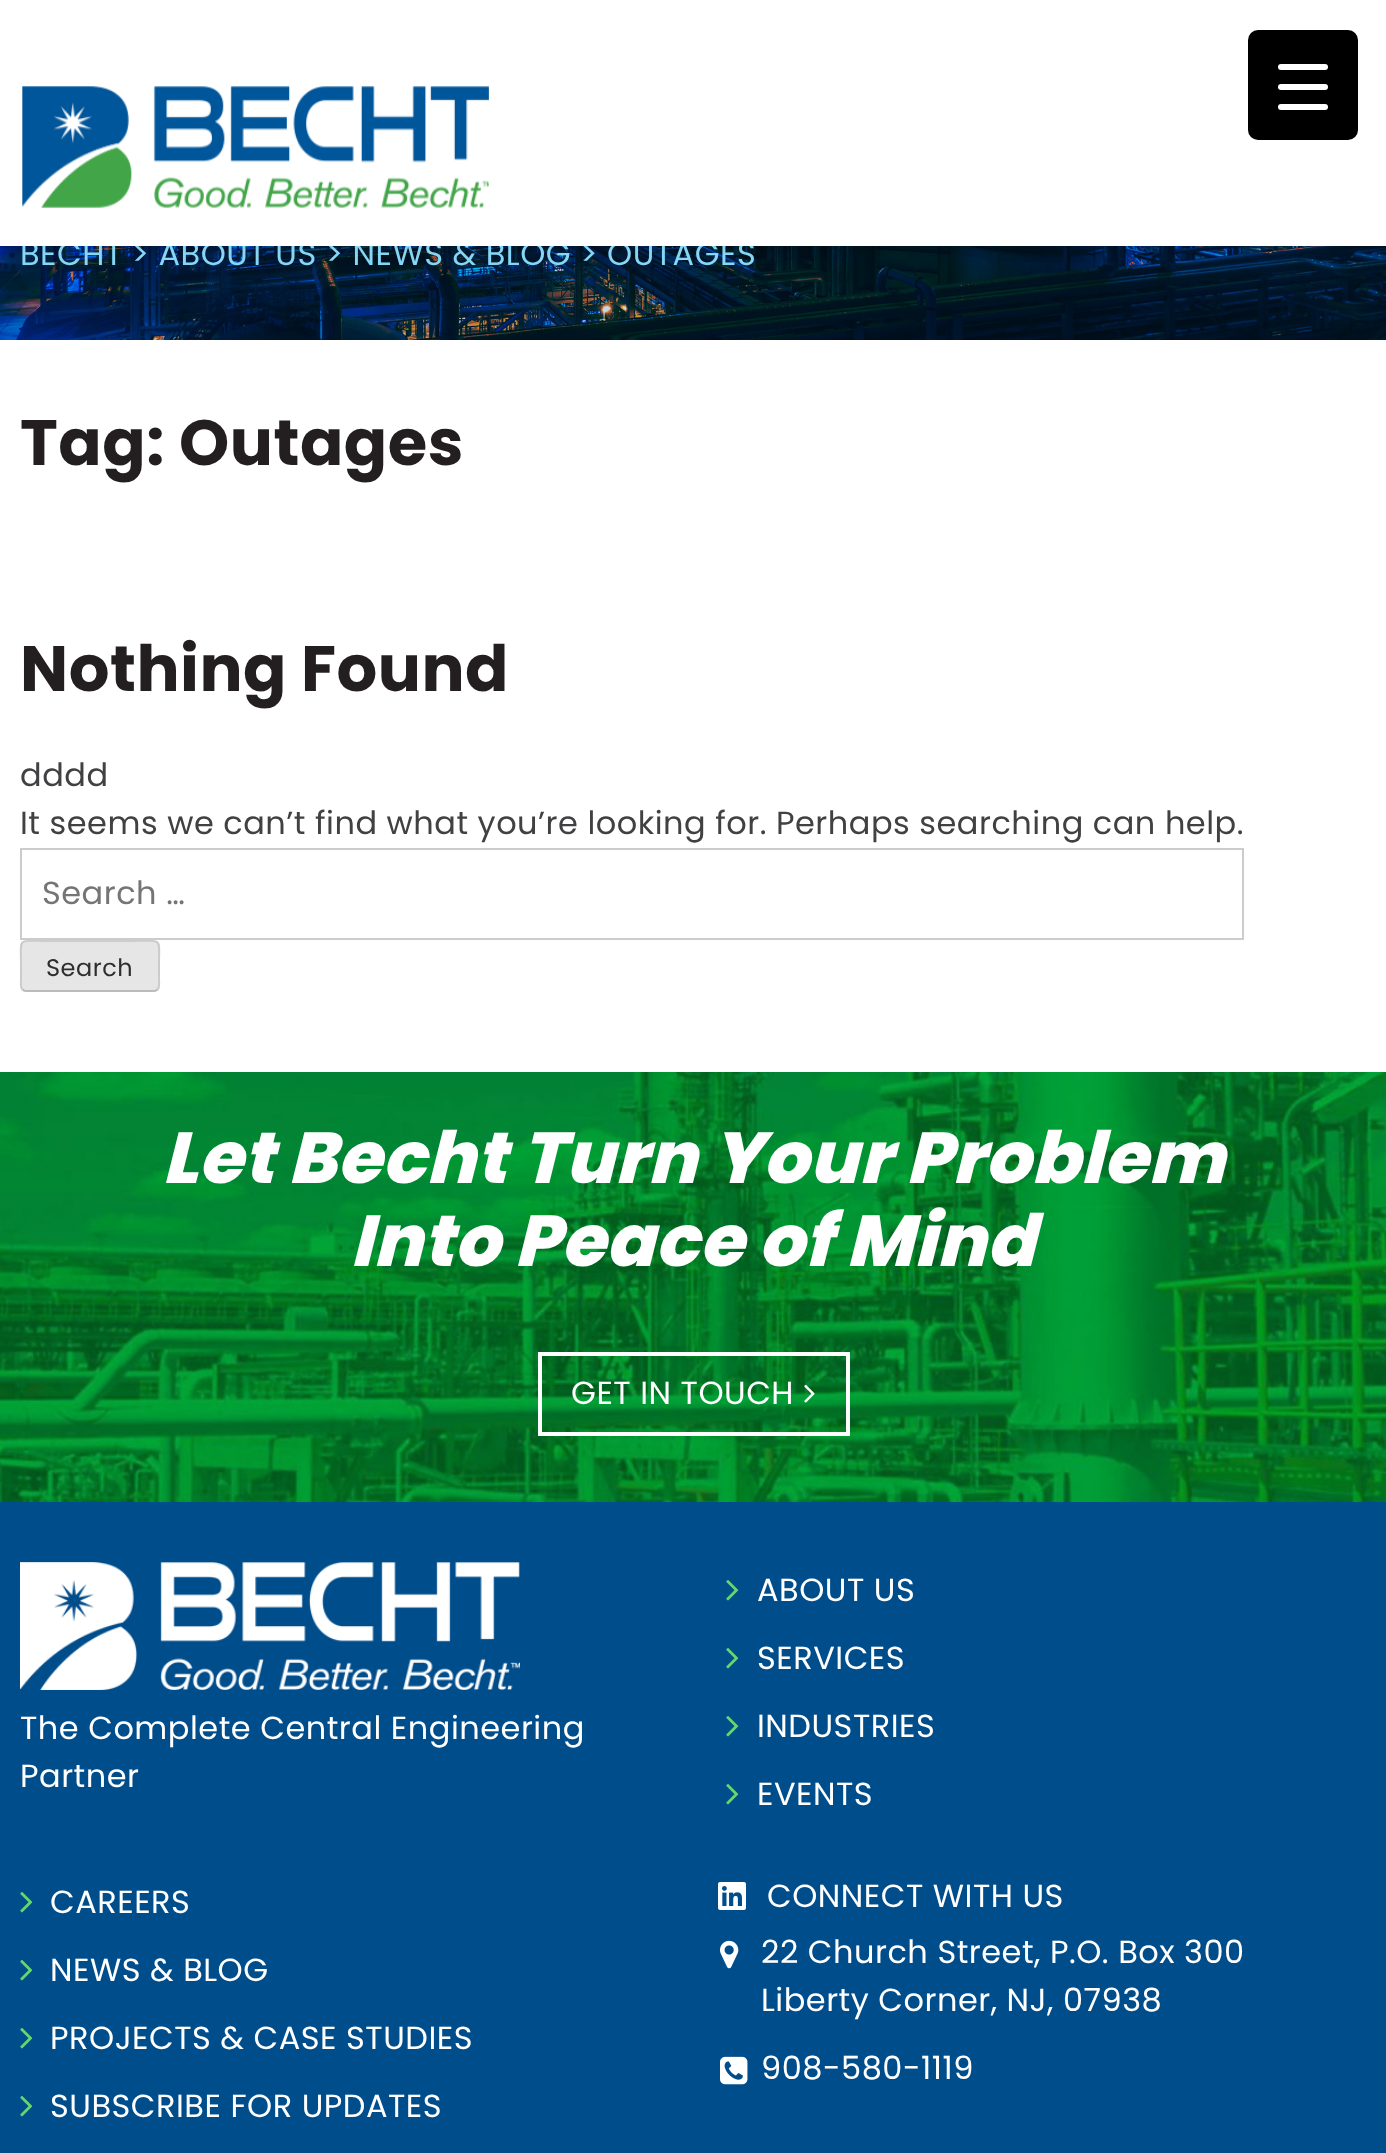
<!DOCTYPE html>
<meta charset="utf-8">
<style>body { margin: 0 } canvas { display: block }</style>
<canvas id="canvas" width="1386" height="2153"></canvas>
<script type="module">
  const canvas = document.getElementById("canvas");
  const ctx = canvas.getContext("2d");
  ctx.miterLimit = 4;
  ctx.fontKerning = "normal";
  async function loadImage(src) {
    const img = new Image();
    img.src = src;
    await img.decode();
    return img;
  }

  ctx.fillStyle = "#ffffff";
  ctx.fillRect(0, 0, 1386, 2153);
  ctx.drawImage(await loadImage("img2.png"), 0, 246, 1386, 94);
  ctx.fillStyle = "rgba(0, 0, 0, 0.15)";
  ctx.filter = "blur(5px)";
  ctx.beginPath();
  ctx.rect(-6, -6, 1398, 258);
  ctx.fill();
  ctx.filter = "none";
  ctx.letterSpacing = "0.5px";
  ctx.font = "32px Poppins";
  ctx.fillStyle = "#86d6f6";
  ctx.fillText("BECHT > ABOUT US > NEWS & BLOG > OUTAGES", 20, 265);
  ctx.fillStyle = "#ffffff";
  ctx.fillRect(0, 0, 1386, 246);
  ctx.fillStyle = "#000000";
  ctx.beginPath();
  ctx.roundRect(1248, 30, 110, 110, 10);
  ctx.fill();
  ctx.fillStyle = "#ffffff";
  ctx.beginPath();
  ctx.roundRect(1278, 84, 50, 6, 3);
  ctx.fill();
  ctx.beginPath();
  ctx.roundRect(1278, 64, 50, 6, 3);
  ctx.fill();
  ctx.beginPath();
  ctx.roundRect(1278, 104, 50, 6, 3);
  ctx.fill();
  ctx.drawImage(await loadImage("img1.png"), 22, 86, 467, 122);
  ctx.font = "bold 64px Poppins";
  ctx.fillStyle = "#231f20";
  ctx.fillText("Tag: Outages", 20, 465);
  ctx.fillText("Nothing Found", 20, 691);
  ctx.font = "32px Poppins";
  ctx.fillStyle = "#414042";
  ctx.fillText("dddd", 20, 786);
  ctx.fillText("It seems we can’t find what you’re looking for. Perhaps searching can help.", 20, 834);
  ctx.strokeStyle = "#cccccc";
  ctx.lineWidth = 2;
  ctx.strokeRect(21, 849, 1222, 90);
  ctx.fillStyle = "#757575";
  ctx.fillText("Search …", 42, 904);
  ctx.fillStyle = "#e6e6e6";
  ctx.beginPath();
  ctx.roundRect(20, 940, 140, 52, 6);
  ctx.fill();
  ctx.beginPath();
  ctx.moveTo(157.5, 989.5);
  ctx.bezierCurveTo(156.5, 990.5, 155.5, 991, 154, 991);
  ctx.lineTo(26, 991);
  ctx.bezierCurveTo(24.5, 991, 23.5, 990.5, 22.5, 989.5);
  ctx.strokeStyle = "#bbbbbb";
  ctx.stroke();
  ctx.beginPath();
  ctx.moveTo(22.5, 989.5);
  ctx.bezierCurveTo(20, 987, 21, 982, 21, 979.5);
  ctx.lineTo(21, 966);
  ctx.bezierCurveTo(21, 936.5, 16.5, 941, 47.5, 941);
  ctx.lineTo(132.5, 941);
  ctx.bezierCurveTo(163.5, 941, 159, 936.5, 159, 966);
  ctx.lineTo(159, 979.5);
  ctx.bezierCurveTo(159, 982, 160, 987, 157.5, 989.5);
  ctx.strokeStyle = "#cccccc";
  ctx.stroke();
  ctx.font = "24px Poppins";
  ctx.fillStyle = "#2e2e2e";
  ctx.fillText("Search", 46, 976);
  ctx.drawImage(await loadImage("img3.png"), 0, 1072, 1386, 430);
  ctx.font = "italic 800 72px Poppins";
  ctx.fillStyle = "#ffffff";
  ctx.fillText("Let Becht Turn Your Problem", 162, 1183);
  ctx.fillText("Into Peace of Mind", 350, 1266);
  ctx.strokeStyle = "#ffffff";
  ctx.lineWidth = 4;
  ctx.strokeRect(540, 1354, 308, 80);
  ctx.font = "32px Poppins";
  ctx.fillText("GET IN TOUCH", 571, 1404);
  ctx.drawImage(await loadImage("img4.png"), 804, 1384, 11, 19);
  ctx.fillStyle = "#004d8c";
  ctx.fillRect(0, 1502, 1386, 651);
  ctx.drawImage(await loadImage("img5.png"), 20, 1562, 500, 128);
  ctx.fillStyle = "#ffffff";
  ctx.fillText("The Complete Central Engineering", 20, 1739);
  ctx.fillText("Partner", 20, 1787);
  ctx.drawImage(await loadImage("img6.png"), 726, 1580, 13, 21);
  ctx.fillText("ABOUT US", 757, 1601);
  ctx.drawImage(await loadImage("img6.png"), 726, 1648, 13, 21);
  ctx.fillText("SERVICES", 757, 1669);
  ctx.drawImage(await loadImage("img6.png"), 726, 1716, 13, 21);
  ctx.fillText("INDUSTRIES", 757, 1737);
  ctx.drawImage(await loadImage("img6.png"), 726, 1784, 13, 21);
  ctx.fillText("EVENTS", 757, 1805);
  ctx.drawImage(await loadImage("img6.png"), 20, 1892, 13, 21);
  ctx.fillText("CAREERS", 50, 1913);
  ctx.drawImage(await loadImage("img6.png"), 20, 1960, 13, 21);
  ctx.fillText("NEWS & BLOG", 50, 1981);
  ctx.drawImage(await loadImage("img6.png"), 20, 2028, 13, 21);
  ctx.fillText("PROJECTS & CASE STUDIES", 50, 2049);
  ctx.drawImage(await loadImage("img6.png"), 20, 2096, 13, 21);
  ctx.fillText("SUBSCRIBE FOR UPDATES", 50, 2117);
  ctx.drawImage(await loadImage("img7.png"), 718, 1882, 28, 28);
  ctx.fillText("CONNECT WITH US", 767, 1907);
  ctx.drawImage(await loadImage("img8.png"), 720, 1940, 19, 29);
  ctx.fillText("22 Church Street, P.O. Box 300", 761, 1963);
  ctx.fillText("Liberty Corner, NJ, 07938", 761, 2011);
  ctx.drawImage(await loadImage("img9.png"), 720, 2056, 28, 29);
  ctx.fillText("908-580-1119", 761, 2079);
</script>
